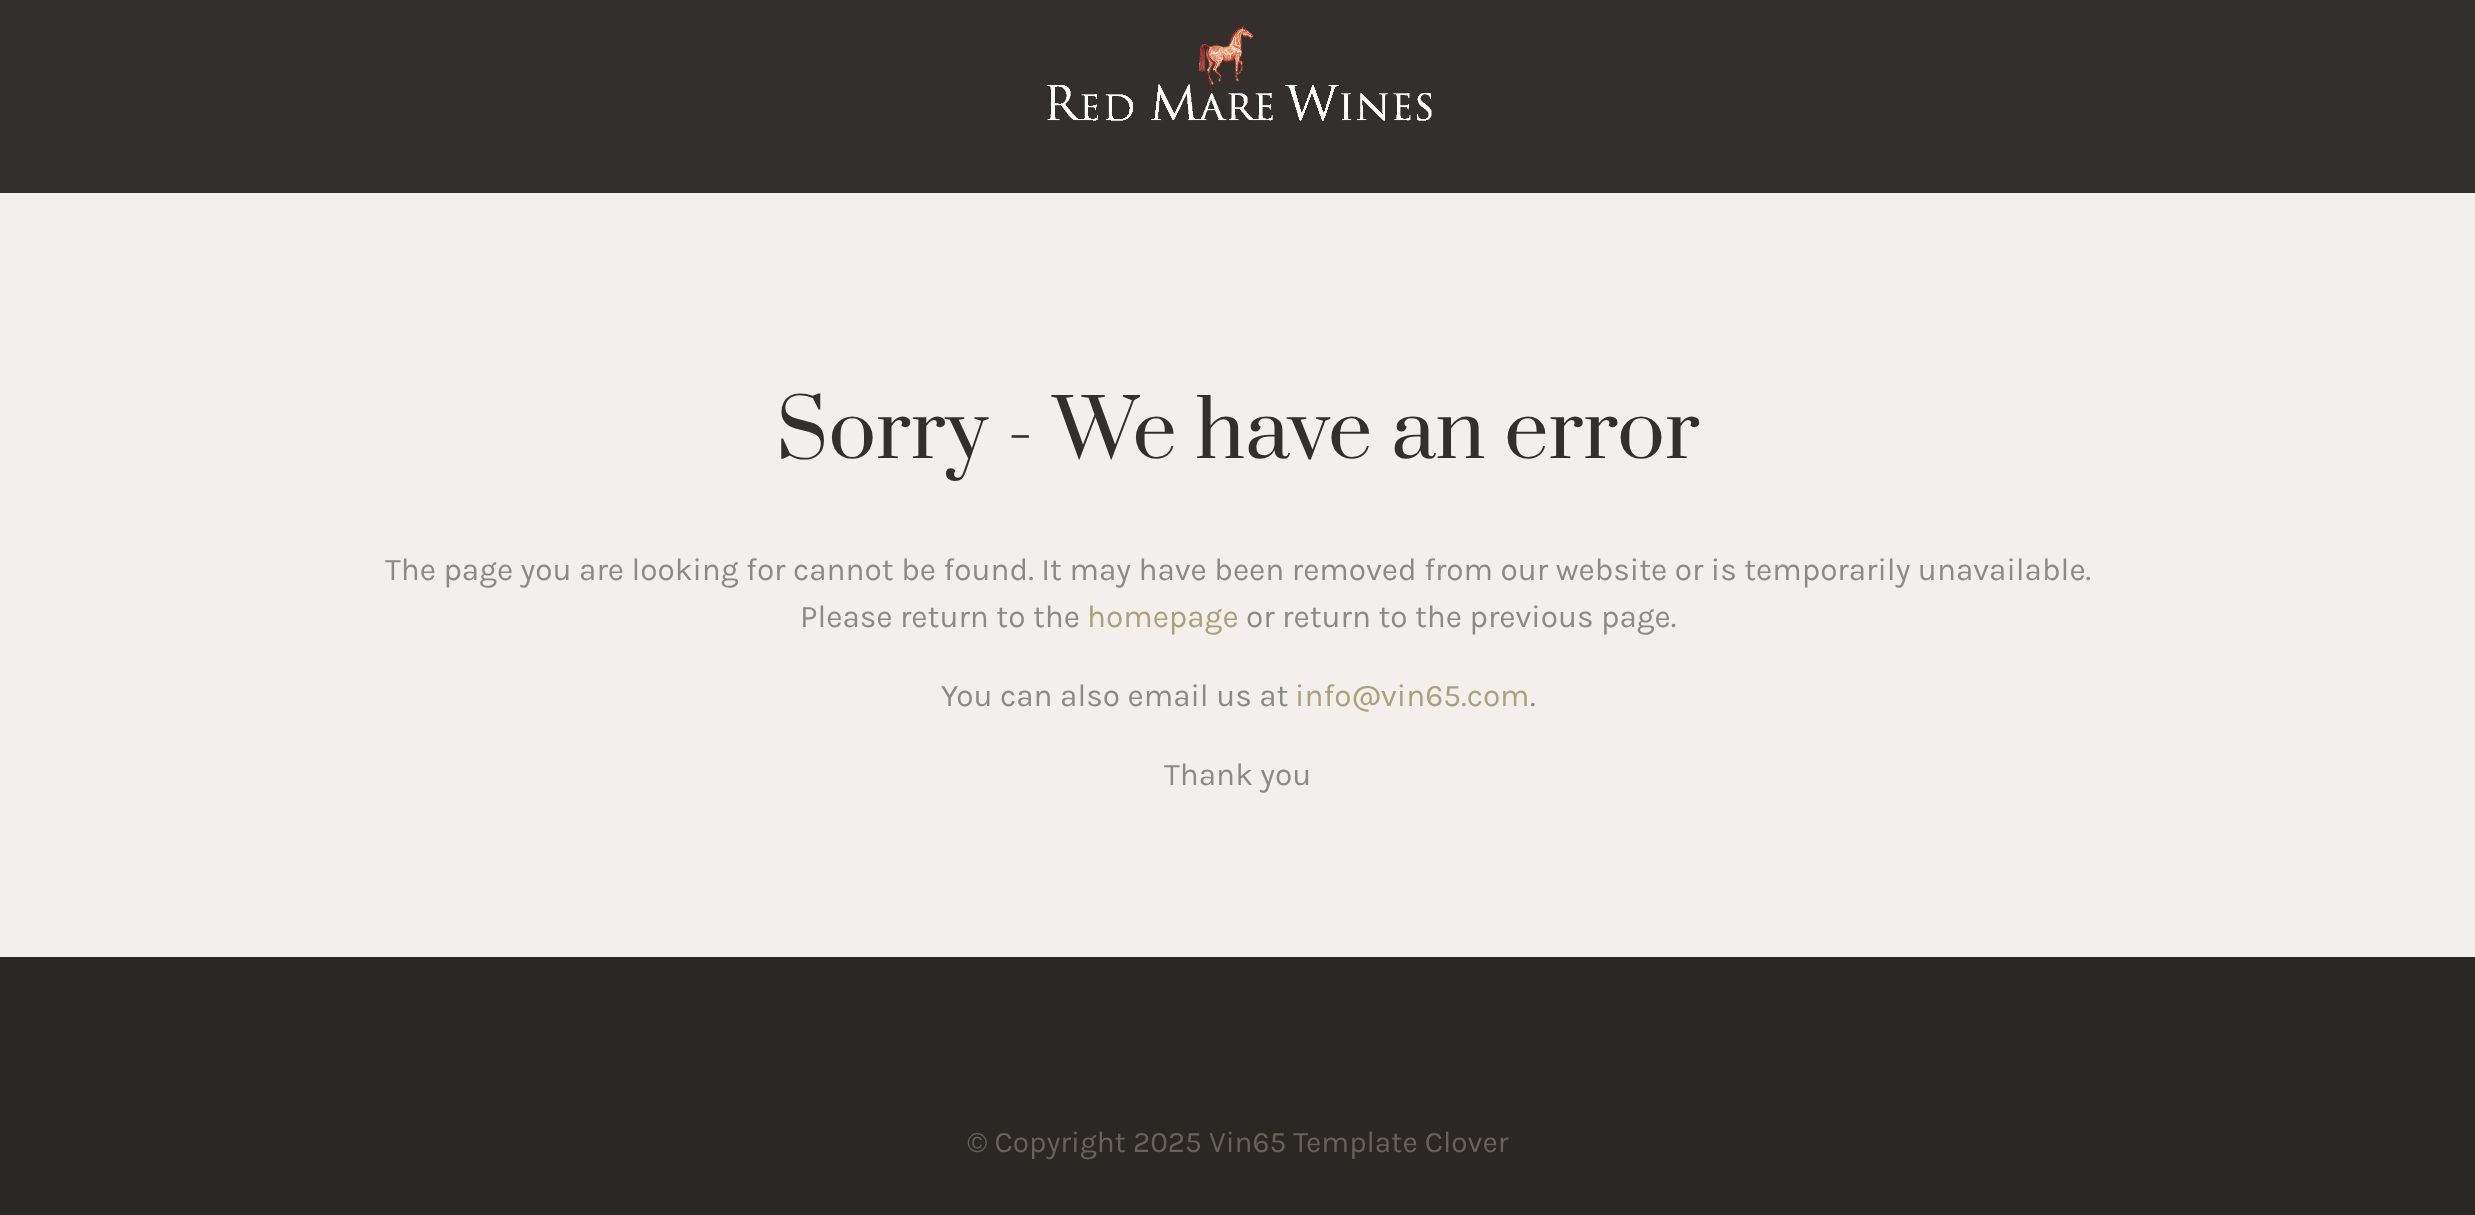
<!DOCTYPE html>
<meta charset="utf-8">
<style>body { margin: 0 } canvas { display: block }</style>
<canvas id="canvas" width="2475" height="1215"></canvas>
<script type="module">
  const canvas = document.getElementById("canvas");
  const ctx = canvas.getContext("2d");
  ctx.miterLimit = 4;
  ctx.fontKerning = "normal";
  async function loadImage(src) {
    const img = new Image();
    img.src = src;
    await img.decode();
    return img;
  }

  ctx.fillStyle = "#f2efed";
  ctx.fillRect(0, 0, 2475, 1215);
  ctx.fillStyle = "#332f2c";
  ctx.fillRect(0, 0, 2475, 193);
  ctx.drawImage(await loadImage("img1.png"), 1046, 26, 386, 95);
  ctx.font = "78.75px Prata";
  ctx.fillText("Sorry - We have an error", 776, 458);
  ctx.font = "31.5px Karla";
  ctx.fillStyle = "#8a8a8a";
  ctx.fillText("The page you are looking for cannot be found. It may have been removed from our website or is temporarily unavailable.", 385, 580);
  ctx.fillText("Please return to the", 800, 627);
  ctx.fillStyle = "#aba07a";
  ctx.fillText("homepage", 1087, 627);
  ctx.fillStyle = "#8a8a8a";
  ctx.fillText("or return to the previous page.", 1246, 627);
  ctx.fillText("You can also email us at", 941, 706);
  ctx.fillStyle = "#aba07a";
  ctx.fillText("info@vin65.com", 1295, 706);
  ctx.fillStyle = "#8a8a8a";
  ctx.fillText(".", 1530, 706);
  ctx.fillText("Thank you", 1164, 785);
  ctx.fillStyle = "#2b2725";
  ctx.fillRect(0, 957, 2475, 258);
  ctx.font = "29.75px Karla";
  ctx.fillStyle = "#676359";
  ctx.fillText("© Copyright 2025 Vin65 Template Clover", 967, 1152);
</script>
